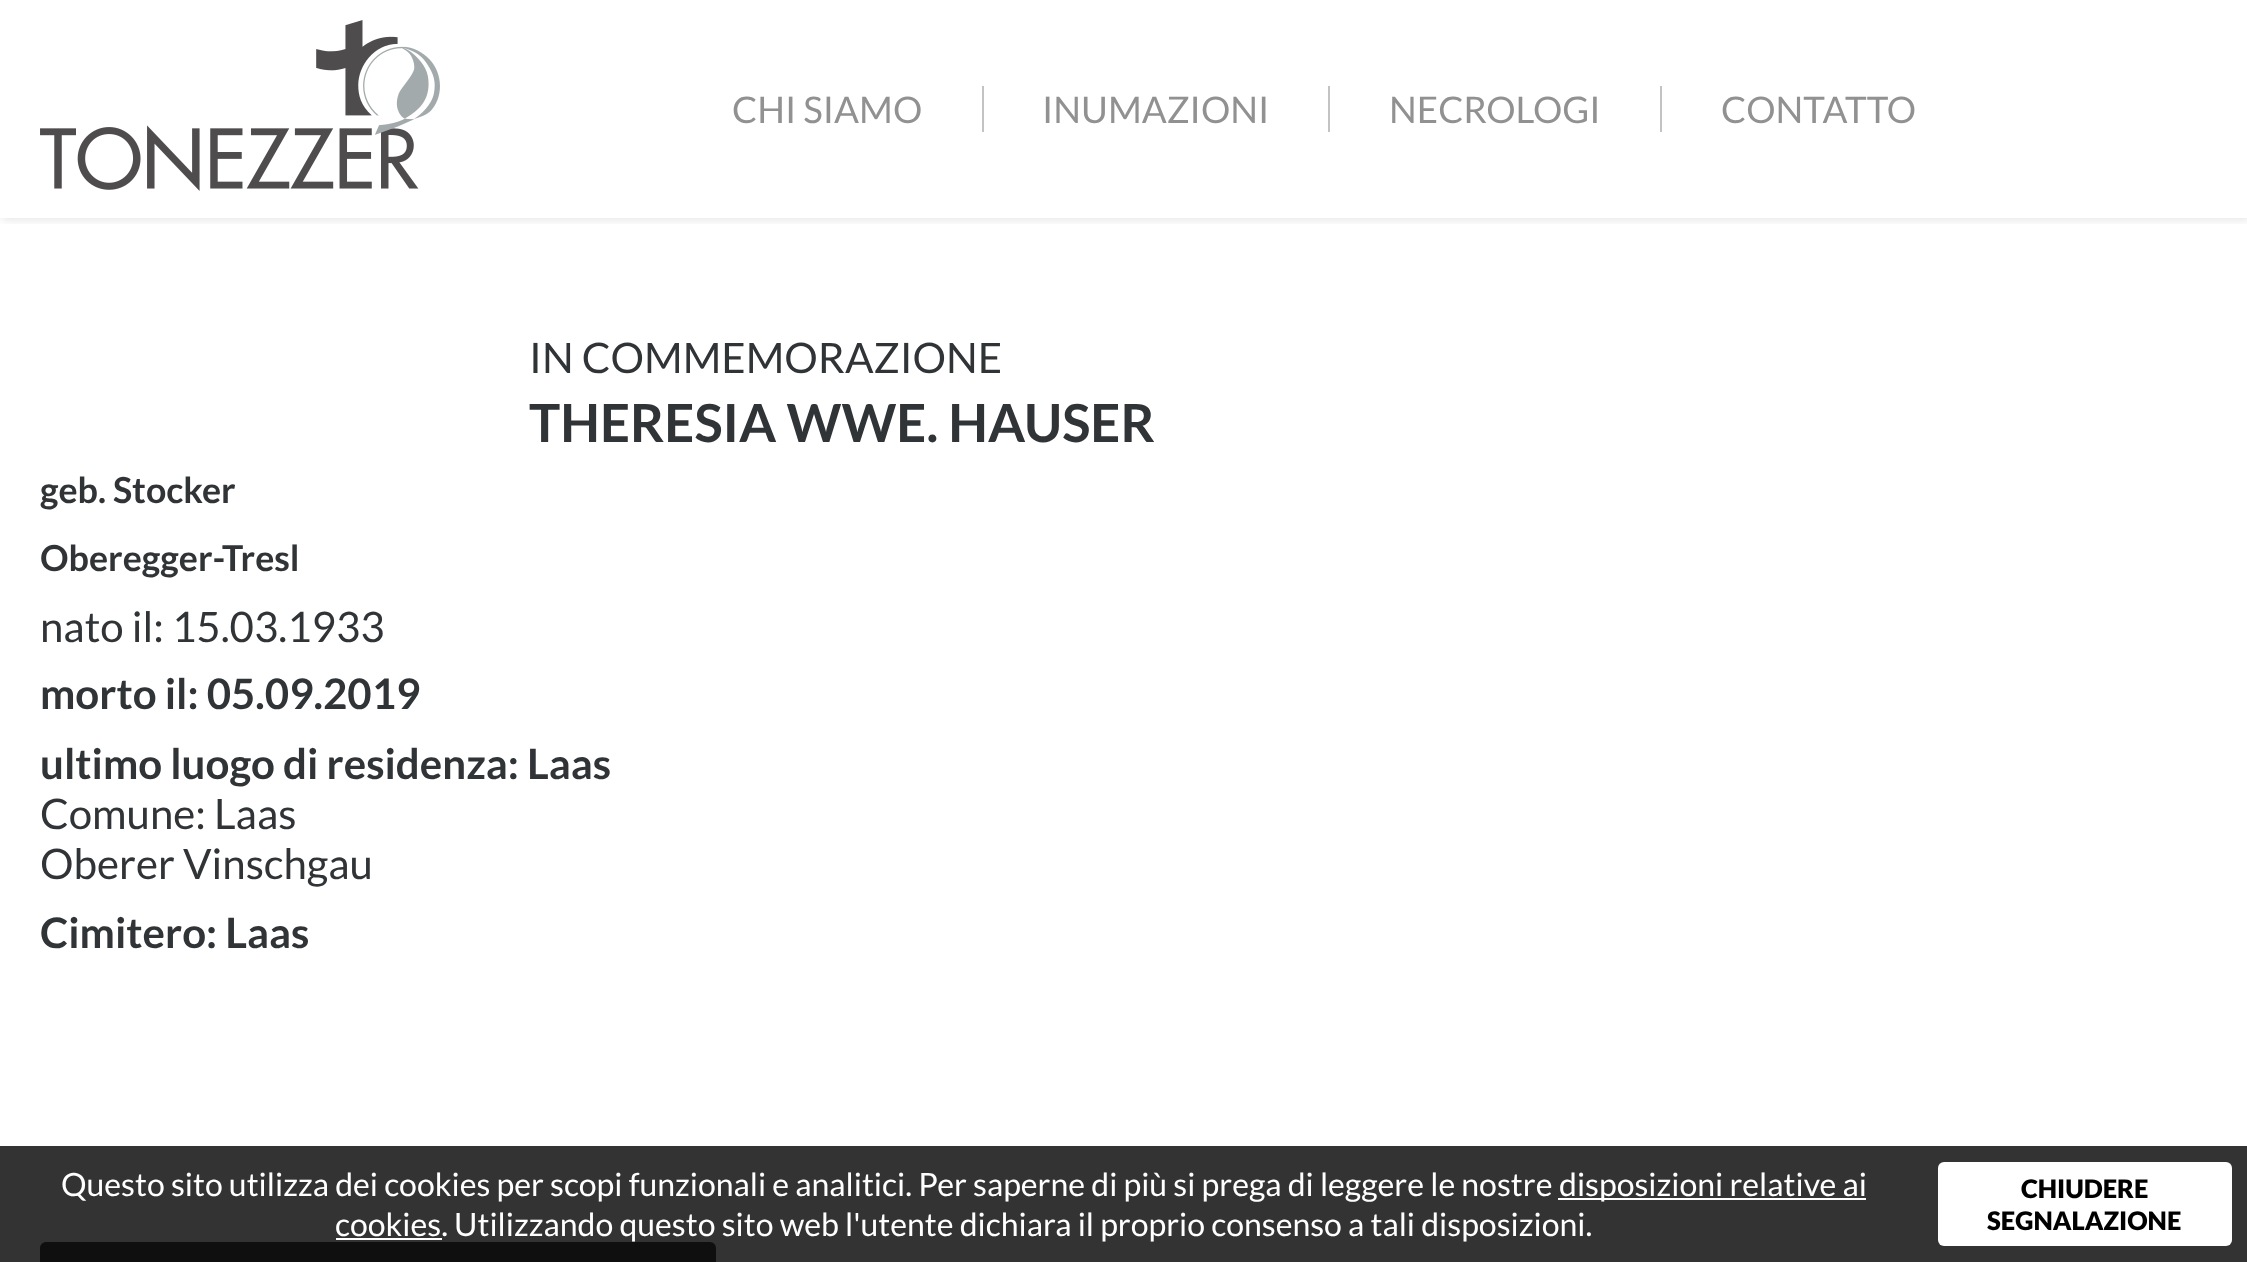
<!DOCTYPE html>
<meta charset="utf-8">
<style>body { margin: 0 } canvas { display: block }</style>
<canvas id="canvas" width="2247" height="1262"></canvas>
<script type="module">
  const canvas = document.getElementById("canvas");
  const ctx = canvas.getContext("2d");
  ctx.miterLimit = 4;
  ctx.fontKerning = "normal";
  async function loadImage(src) {
    const img = new Image();
    img.src = src;
    await img.decode();
    return img;
  }

  ctx.fillStyle = "#ffffff";
  ctx.fillRect(0, 0, 2247, 1262);
  ctx.fillStyle = "#333333";
  ctx.fillRect(0, 1146, 2247, 116);
  ctx.save();
  ctx.beginPath();
  ctx.rect(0, 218, 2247, 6);
  ctx.clip();
  ctx.fillStyle = "rgba(0, 0, 0, 0.1)";
  ctx.filter = "blur(5px)";
  ctx.beginPath();
  ctx.rect(2, 2, 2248, 218);
  ctx.fill();
  ctx.filter = "none";
  ctx.restore();
  ctx.drawImage(await loadImage("img1.png"), 40, 20, 400, 171);
  ctx.font = "36.75px Lato";
  ctx.fillStyle = "#919191";
  ctx.fillText("CHI SIAMO", 732, 123);
  ctx.fillStyle = "#c4c3c3";
  ctx.fillRect(982, 86, 2, 46);
  ctx.fillStyle = "#919191";
  ctx.fillText("INUMAZIONI", 1042, 123);
  ctx.fillStyle = "#c4c3c3";
  ctx.fillRect(1328, 86, 2, 46);
  ctx.fillStyle = "#919191";
  ctx.fillText("NECROLOGI", 1389, 123);
  ctx.fillStyle = "#c4c3c3";
  ctx.fillRect(1660, 86, 2, 46);
  ctx.fillStyle = "#919191";
  ctx.fillText("CONTATTO", 1721, 123);
  ctx.font = "42px Lato";
  ctx.fillStyle = "#313437";
  ctx.fillText("IN COMMEMORAZIONE", 529, 373);
  ctx.font = "bold 52.5px Lato";
  ctx.fillText("THERESIA WWE. HAUSER", 529, 442);
  ctx.font = "bold 35.75px Lato";
  ctx.fillText("geb. Stocker", 40, 503);
  ctx.fillText("Oberegger-Tresl", 40, 571);
  ctx.font = "42px Lato";
  ctx.fillText("nato il: 15.03.1933", 40, 642);
  ctx.font = "bold 42px Lato";
  ctx.fillText("morto il: 05.09.2019", 40, 709);
  ctx.fillText("ultimo luogo di residenza: Laas", 40, 779);
  ctx.font = "42px Lato";
  ctx.fillText("Comune: Laas", 40, 829);
  ctx.fillText("Oberer Vinschgau", 40, 879);
  ctx.font = "bold 42px Lato";
  ctx.fillText("Cimitero: Laas", 40, 948);
  ctx.fillStyle = "#100f0f";
  ctx.beginPath();
  ctx.roundRect(41, 1243, 674, 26, 5);
  ctx.fill();
  ctx.strokeStyle = "#100f0f";
  ctx.lineWidth = 2;
  ctx.stroke();
  ctx.font = "32px Lato";
  ctx.fillStyle = "#ffffff";
  ctx.fillText("Questo sito utilizza dei cookies per scopi funzionali e analitici. Per saperne di più si prega di leggere le nostre", 61, 1196);
  ctx.fillRect(1558, 1198, 308, 2);
  ctx.fillText("disposizioni relative ai", 1559, 1196);
  ctx.fillRect(336, 1238, 106, 2);
  ctx.fillText("cookies. Utilizzando questo sito web l'utente dichiara il proprio consenso a tali disposizioni.", 335, 1236);
  ctx.beginPath();
  ctx.roundRect(1938, 1162, 294, 84, 6);
  ctx.fill();
  ctx.font = "900 25.5px Lato";
  ctx.fillStyle = "#000000";
  ctx.fillText("CHIUDERE", 2021, 1198);
  ctx.fillText("SEGNALAZIONE", 1987, 1230);
</script>
